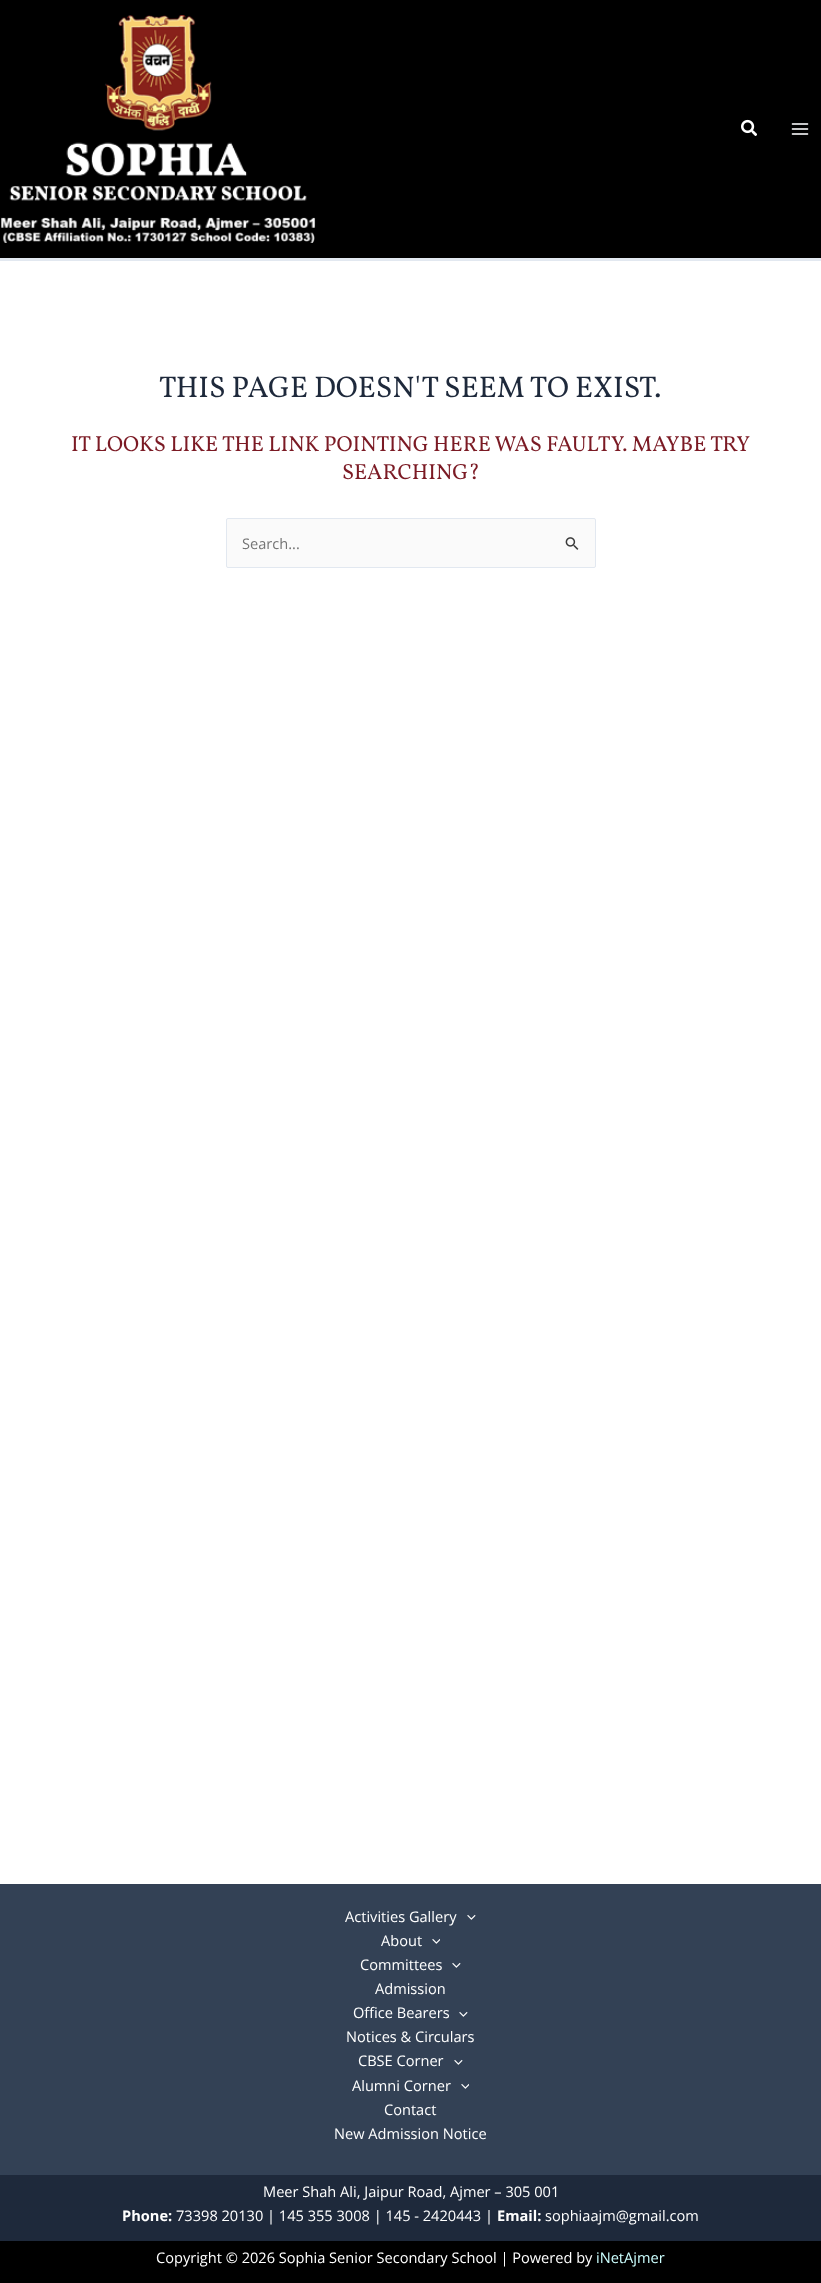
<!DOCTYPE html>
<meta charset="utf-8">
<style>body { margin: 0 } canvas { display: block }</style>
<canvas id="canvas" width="821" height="2283"></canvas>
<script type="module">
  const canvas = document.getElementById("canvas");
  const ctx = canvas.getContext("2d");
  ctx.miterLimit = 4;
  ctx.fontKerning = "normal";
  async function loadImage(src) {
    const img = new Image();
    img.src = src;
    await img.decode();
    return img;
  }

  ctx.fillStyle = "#ffffff";
  ctx.fillRect(0, 0, 821, 2283);
  ctx.fillStyle = "#000000";
  ctx.fillRect(0, 0, 821, 258);
  ctx.fillStyle = "#e2e8f0";
  ctx.fillRect(0, 258, 821, 3);
  ctx.drawImage(await loadImage("img1.png"), 1, 15, 315, 228);
  ctx.drawImage(await loadImage("img2.png"), 741, 119, 16, 17);
  ctx.drawImage(await loadImage("img3.png"), 791, 123, 18, 12);
  ctx.font = "30px Vollkorn";
  ctx.fillStyle = "#1e293b";
  ctx.fillText("THIS PAGE DOESN'T SEEM TO EXIST.", 159, 397);
  ctx.font = "21.9px Vollkorn";
  ctx.fillStyle = "#7b1a24";
  ctx.fillText("IT LOOKS LIKE THE LINK POINTING HERE WAS FAULTY. MAYBE TRY", 71, 451);
  ctx.fillText("SEARCHING?", 342, 479);
  ctx.fillStyle = "#fafafa";
  ctx.beginPath();
  ctx.roundRect(226.5, 518.5, 369, 49, 1.5);
  ctx.fill();
  ctx.strokeStyle = "#e2e8f0";
  ctx.stroke();
  ctx.font = "14.6px Open Sans";
  ctx.fillStyle = "#757575";
  ctx.fillText("Search...", 242, 549);
  ctx.drawImage(await loadImage("img4.png"), 565, 537, 14, 13);
  ctx.fillStyle = "#334155";
  ctx.fillRect(0, 1884, 821, 291);
  ctx.fillStyle = "#ffffff";
  ctx.fillText("Activities Gallery", 345, 1922);
  ctx.drawImage(await loadImage("img5.png"), 467, 1914, 9, 6);
  ctx.fillText("About", 381, 1946);
  ctx.drawImage(await loadImage("img6.png"), 432, 1938, 8, 6);
  ctx.fillText("Committees", 360, 1970);
  ctx.drawImage(await loadImage("img5.png"), 452, 1962, 9, 6);
  ctx.fillText("Admission", 375, 1994);
  ctx.fillText("Office Bearers", 353, 2018);
  ctx.drawImage(await loadImage("img5.png"), 459, 2011, 9, 6);
  ctx.fillText("Notices & Circulars", 346, 2042);
  ctx.fillText("CBSE Corner", 358, 2066);
  ctx.drawImage(await loadImage("img5.png"), 454, 2059, 9, 6);
  ctx.fillText("Alumni Corner", 352, 2091);
  ctx.drawImage(await loadImage("img6.png"), 461, 2083, 8, 6);
  ctx.fillText("Contact", 384, 2115);
  ctx.fillText("New Admission Notice", 334, 2139);
  ctx.fillStyle = "#1e293b";
  ctx.fillRect(0, 2175, 821, 66);
  ctx.fillStyle = "#ffffff";
  ctx.fillText("Meer Shah Ali, Jaipur Road, Ajmer – 305 001", 263, 2197);
  ctx.font = "bold 14.6px Open Sans";
  ctx.fillText("Phone:", 122, 2221);
  ctx.font = "14.6px Open Sans";
  ctx.fillText("73398 20130 | 145 355 3008 | 145 - 2420443 |", 176, 2221);
  ctx.font = "bold 14.6px Open Sans";
  ctx.fillText("Email:", 497, 2221);
  ctx.font = "14.6px Open Sans";
  ctx.fillText("sophiaajm@gmail.com", 545, 2221);
  ctx.fillStyle = "#000000";
  ctx.fillRect(0, 2241, 821, 42);
  ctx.fillStyle = "#ffffff";
  ctx.fillText("Copyright © 2026 Sophia Senior Secondary School | Powered by", 156, 2263);
  ctx.fillStyle = "#ccffff";
  ctx.fillText("iNetAjmer", 596, 2263);
</script>
